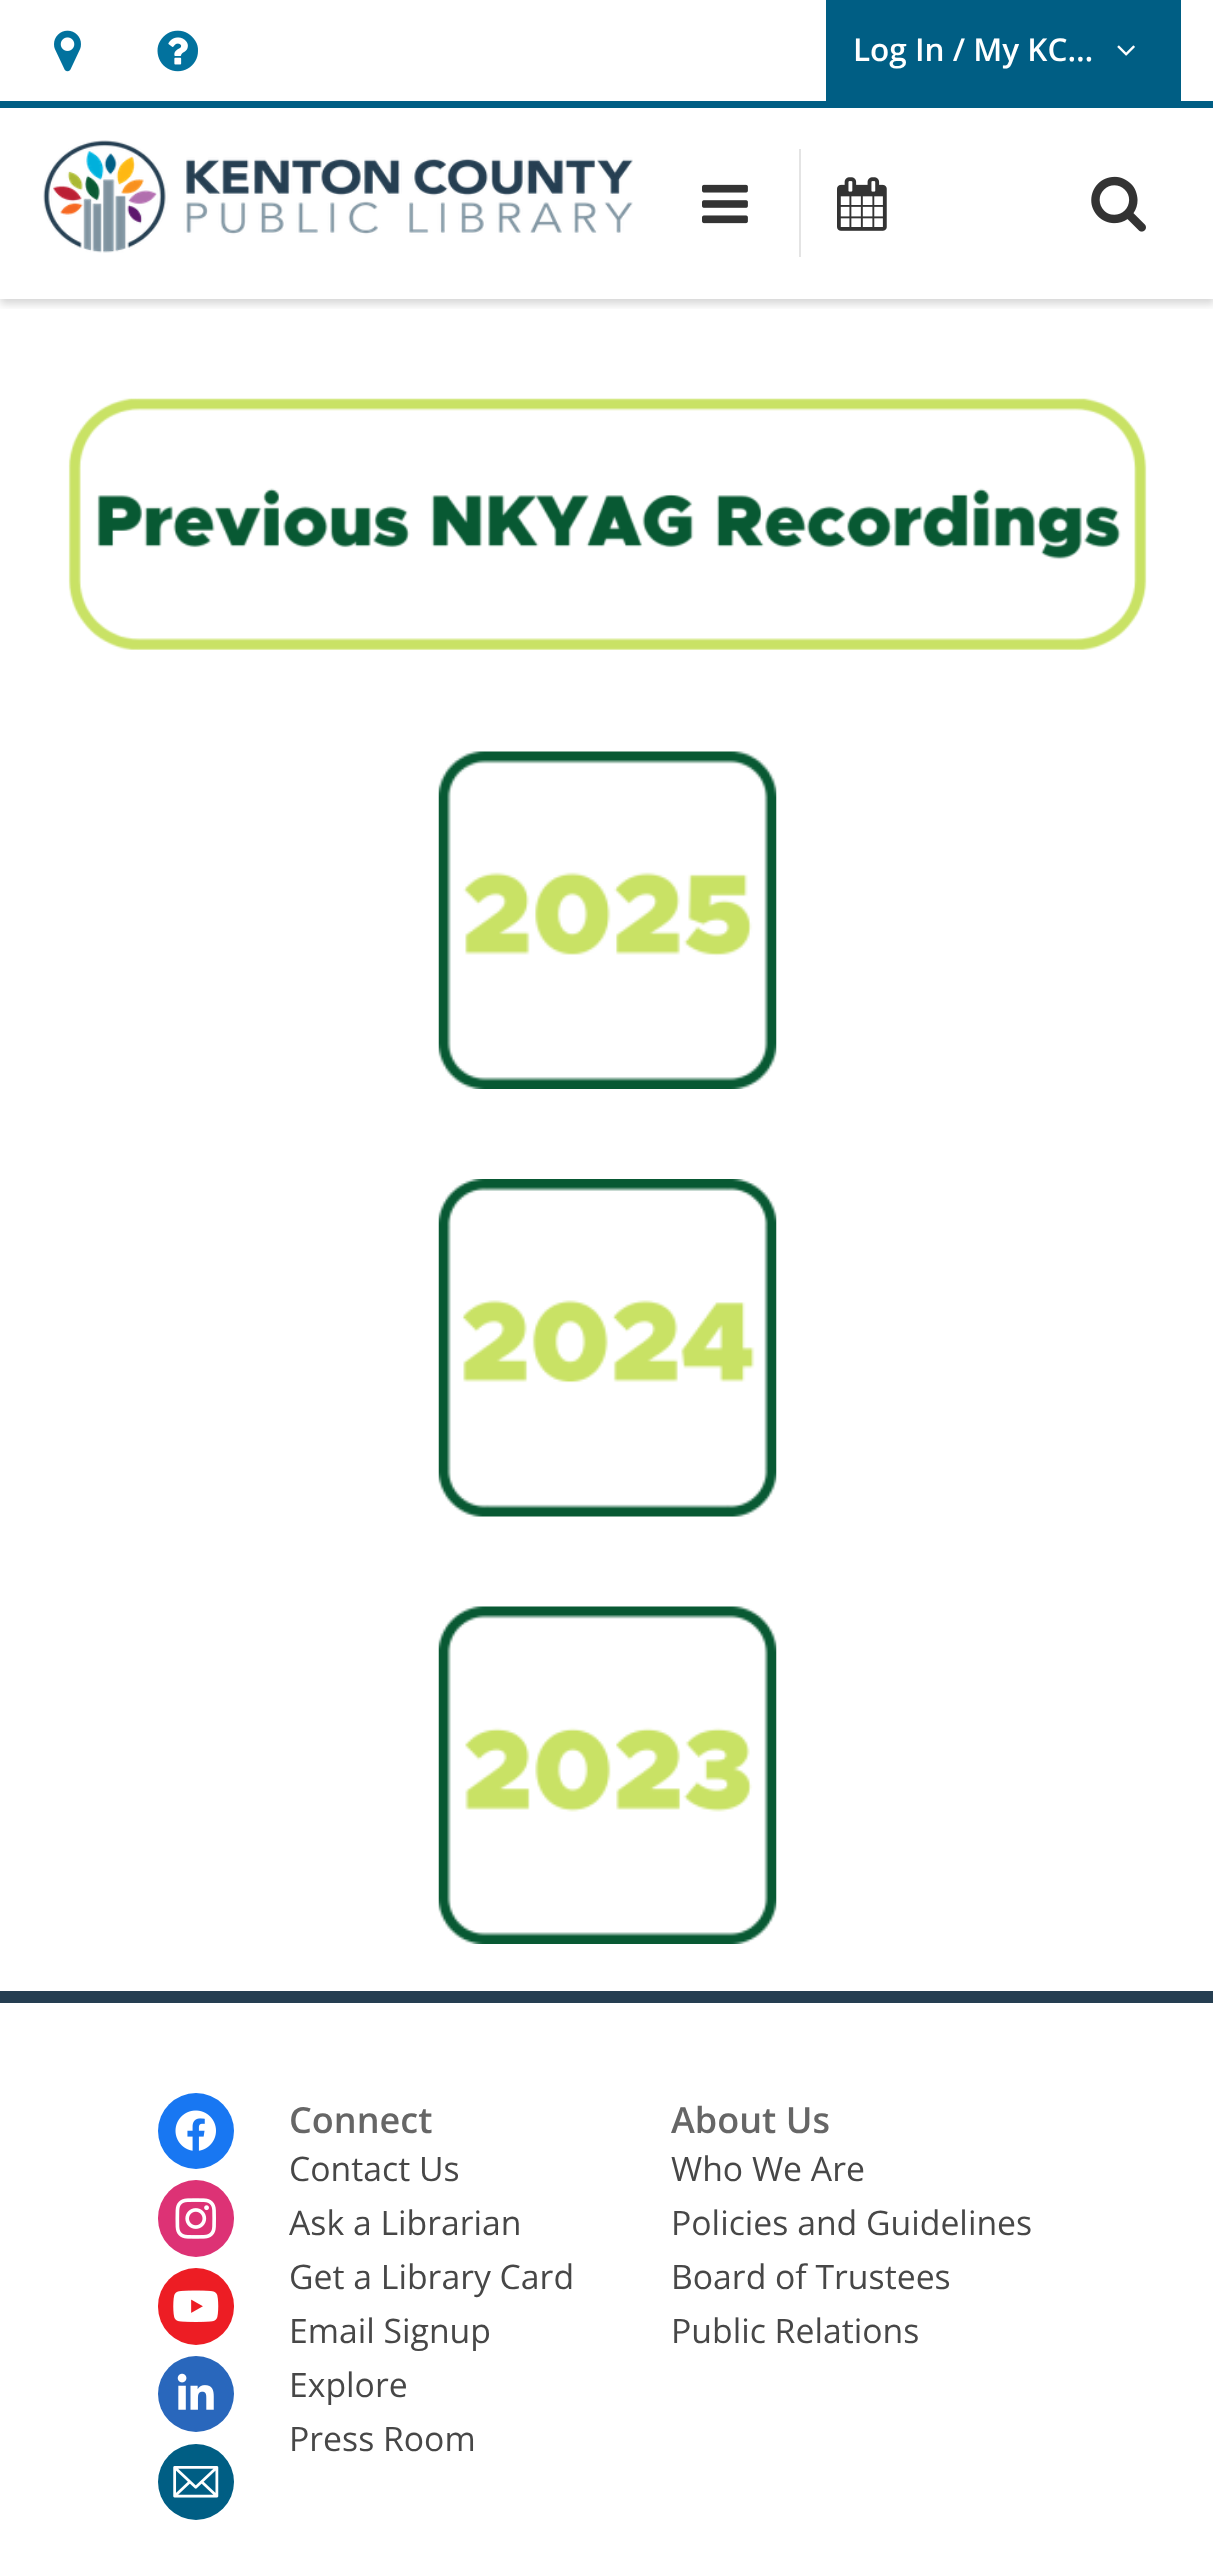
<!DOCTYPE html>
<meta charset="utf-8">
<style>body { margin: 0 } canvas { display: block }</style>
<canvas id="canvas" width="1213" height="2554"></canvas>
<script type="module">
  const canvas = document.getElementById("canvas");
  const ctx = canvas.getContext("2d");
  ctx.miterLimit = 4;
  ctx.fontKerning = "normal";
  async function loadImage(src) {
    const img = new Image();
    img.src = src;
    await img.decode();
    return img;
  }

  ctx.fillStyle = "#ffffff";
  ctx.fillRect(0, 0, 1213, 2554);
  ctx.save();
  ctx.beginPath();
  ctx.rect(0, 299, 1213, 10);
  ctx.clip();
  ctx.fillStyle = "rgba(0, 0, 0, 0.16)";
  ctx.filter = "blur(4.5px)";
  ctx.beginPath();
  ctx.rect(0, 5, 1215, 299);
  ctx.fill();
  ctx.filter = "none";
  ctx.restore();
  ctx.fillStyle = "#005e84";
  ctx.fillRect(0, 101, 1213, 7);
  ctx.drawImage(await loadImage("img1.png"), 54, 30, 27, 42);
  ctx.drawImage(await loadImage("img2.png"), 157, 30, 41, 42);
  ctx.fillRect(826, 0, 355, 101);
  ctx.font = "600 31.5px Open Sans";
  ctx.fillStyle = "#ffffff";
  ctx.fillText("Log In / My KC…", 853, 61);
  ctx.drawImage(await loadImage("img3.png"), 1117, 45, 18, 11);
  ctx.drawImage(await loadImage("img4.png"), 43, 140, 590, 113);
  ctx.drawImage(await loadImage("img5.png"), 702, 184, 46, 40);
  ctx.fillStyle = "#e4e4e4";
  ctx.fillRect(799, 149, 2, 108);
  ctx.drawImage(await loadImage("img6.png"), 837, 177, 50, 54);
  ctx.drawImage(await loadImage("img7.png"), 1091, 176, 55, 56);
  ctx.drawImage(await loadImage("img8.png"), 68, 398, 1079, 252);
  ctx.drawImage(await loadImage("img9.png"), 438, 751, 339, 338);
  ctx.drawImage(await loadImage("img10.png"), 438, 1179, 339, 338);
  ctx.drawImage(await loadImage("img11.png"), 438, 1606, 339, 338);
  ctx.fillStyle = "#253e51";
  ctx.fillRect(0, 1991, 1213, 12);
  ctx.fillStyle = "#1877f2";
  ctx.beginPath();
  ctx.arc(196, 2131, 38, 0, Math.PI * 2);
  ctx.fill();
  ctx.drawImage(await loadImage("img12.png"), 175, 2110, 41, 41);
  ctx.fillStyle = "#dd3275";
  ctx.beginPath();
  ctx.roundRect(158, 2180, 76, 77, 38);
  ctx.fill();
  ctx.drawImage(await loadImage("img13.png"), 175, 2198, 41, 41);
  ctx.fillStyle = "#ed1d24";
  ctx.beginPath();
  ctx.roundRect(158, 2268, 76, 77, 38);
  ctx.fill();
  ctx.drawImage(await loadImage("img14.png"), 173, 2290, 46, 32);
  ctx.fillStyle = "#2967bc";
  ctx.beginPath();
  ctx.arc(196, 2394, 38, 0, Math.PI * 2);
  ctx.fill();
  ctx.drawImage(await loadImage("img15.png"), 177, 2373, 37, 37);
  ctx.fillStyle = "#005e84";
  ctx.beginPath();
  ctx.arc(196, 2482, 38, 0, Math.PI * 2);
  ctx.fill();
  ctx.drawImage(await loadImage("img16.png"), 173, 2466, 46, 32);
  ctx.font = "600 36px Open Sans";
  ctx.fillStyle = "#666666";
  ctx.fillText("Connect", 289, 2133);
  ctx.font = "33.75px Open Sans";
  ctx.fillStyle = "#474747";
  ctx.fillText("Contact Us", 289, 2181);
  ctx.fillText("Ask a Librarian", 289, 2235);
  ctx.fillText("Get a Library Card", 289, 2289);
  ctx.fillText("Email Signup", 289, 2343);
  ctx.fillText("Explore", 289, 2397);
  ctx.fillText("Press Room", 289, 2451);
  ctx.font = "600 36px Open Sans";
  ctx.fillStyle = "#666666";
  ctx.fillText("About Us", 671, 2133);
  ctx.font = "33.75px Open Sans";
  ctx.fillStyle = "#474747";
  ctx.fillText("Who We Are", 671, 2181);
  ctx.fillText("Policies and Guidelines", 671, 2235);
  ctx.fillText("Board of Trustees", 671, 2289);
  ctx.fillText("Public Relations", 671, 2343);
</script>
